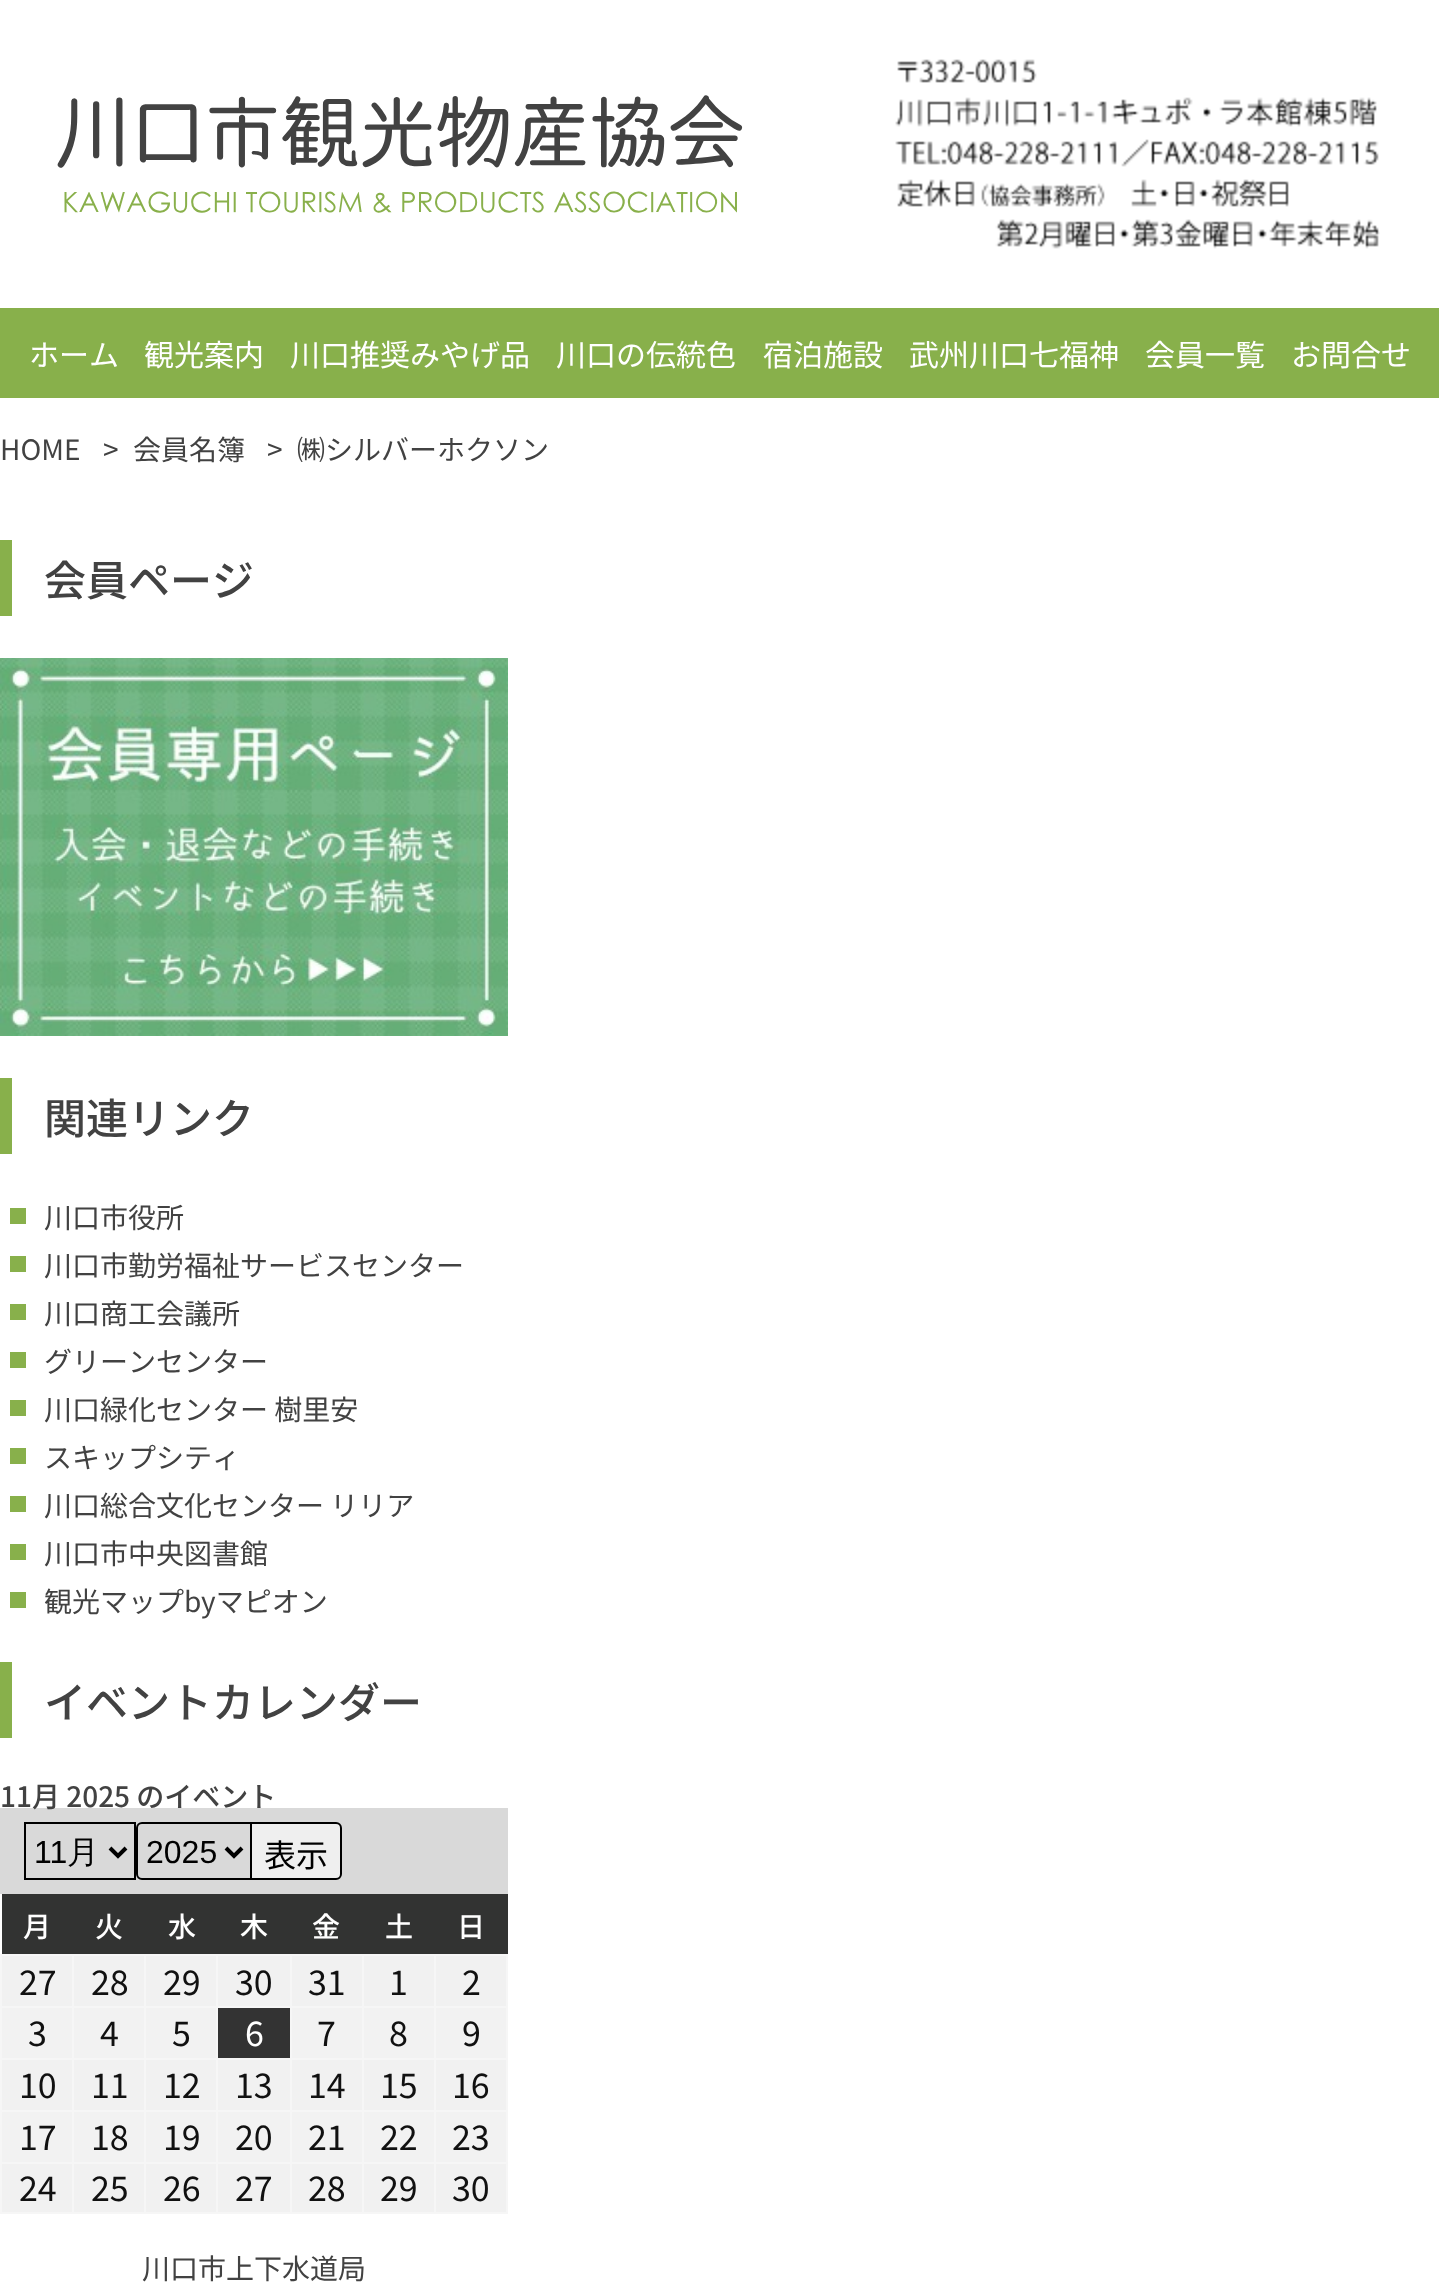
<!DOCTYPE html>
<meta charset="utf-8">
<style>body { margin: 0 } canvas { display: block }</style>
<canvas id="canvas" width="1439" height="2289"></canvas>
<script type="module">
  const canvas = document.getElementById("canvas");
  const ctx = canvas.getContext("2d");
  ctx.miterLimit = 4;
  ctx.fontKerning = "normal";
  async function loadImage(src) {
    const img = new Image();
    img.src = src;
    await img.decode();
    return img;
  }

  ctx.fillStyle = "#ffffff";
  ctx.fillRect(0, 0, 1439, 2289);
  ctx.drawImage(await loadImage("img1.png"), 57, 95, 686, 118);
  ctx.drawImage(await loadImage("img2.png"), 895, 59, 485, 190);
  ctx.fillStyle = "#88b04b";
  ctx.fillRect(0, 308, 1439, 90);
  ctx.font = "30px Noto Sans JP";
  ctx.fillStyle = "#ffffff";
  ctx.fillText("ホーム", 29, 366);
  ctx.fillText("観光案内", 144, 366);
  ctx.fillText("川口推奨みやげ品", 290, 366);
  ctx.fillText("川口の伝統色", 556, 366);
  ctx.fillText("宿泊施設", 763, 366);
  ctx.fillText("武州川口七福神", 909, 366);
  ctx.fillText("会員一覧", 1145, 366);
  ctx.fillText("お問合せ", 1291, 366);
  ctx.font = "28px Noto Sans JP";
  ctx.fillStyle = "#424242";
  ctx.fillText("HOME", 0, 460);
  ctx.fillText(">", 103, 460);
  ctx.fillText("会員名簿", 133, 460);
  ctx.fillText(">", 267, 460);
  ctx.fillText("㈱シルバーホクソン", 297, 460);
  ctx.fillStyle = "#88b04b";
  ctx.fillRect(0, 540, 12, 76);
  ctx.font = "500 42px Noto Sans JP";
  ctx.fillStyle = "#424242";
  ctx.fillText("会員ページ", 44, 596);
  ctx.drawImage(await loadImage("img3.png"), 0, 658, 508, 378);
  ctx.fillStyle = "#88b04b";
  ctx.fillRect(0, 1078, 12, 76);
  ctx.fillStyle = "#424242";
  ctx.fillText("関連リンク", 44, 1134);
  ctx.fillStyle = "#88b04b";
  ctx.fillRect(10, 1208, 16, 16);
  ctx.font = "28px Noto Sans JP";
  ctx.fillStyle = "#424242";
  ctx.fillText("川口市役所", 44, 1228);
  ctx.fillStyle = "#88b04b";
  ctx.fillRect(10, 1256, 16, 16);
  ctx.fillStyle = "#424242";
  ctx.fillText("川口市勤労福祉サービスセンター", 44, 1276);
  ctx.fillStyle = "#88b04b";
  ctx.fillRect(10, 1304, 16, 16);
  ctx.fillStyle = "#424242";
  ctx.fillText("川口商工会議所", 44, 1324);
  ctx.fillStyle = "#88b04b";
  ctx.fillRect(10, 1352, 16, 16);
  ctx.fillStyle = "#424242";
  ctx.fillText("グリーンセンター", 44, 1372);
  ctx.fillStyle = "#88b04b";
  ctx.fillRect(10, 1400, 16, 16);
  ctx.fillStyle = "#424242";
  ctx.fillText("川口緑化センター 樹里安", 44, 1420);
  ctx.fillStyle = "#88b04b";
  ctx.fillRect(10, 1448, 16, 16);
  ctx.fillStyle = "#424242";
  ctx.fillText("スキップシティ", 44, 1468);
  ctx.fillStyle = "#88b04b";
  ctx.fillRect(10, 1496, 16, 16);
  ctx.fillStyle = "#424242";
  ctx.fillText("川口総合文化センター リリア", 44, 1516);
  ctx.fillStyle = "#88b04b";
  ctx.fillRect(10, 1544, 16, 16);
  ctx.fillStyle = "#424242";
  ctx.fillText("川口市中央図書館", 44, 1564);
  ctx.fillStyle = "#88b04b";
  ctx.fillRect(10, 1592, 16, 16);
  ctx.fillStyle = "#424242";
  ctx.fillText("観光マップbyマピオン", 44, 1612);
  ctx.fillStyle = "#88b04b";
  ctx.fillRect(0, 1662, 12, 76);
  ctx.font = "500 42px Noto Sans JP";
  ctx.fillStyle = "#424242";
  ctx.fillText("イベントカレンダー", 44, 1718);
  ctx.fillStyle = "#d9d9d9";
  ctx.fillRect(0, 1808, 508, 86);
  ctx.font = "500 28px Noto Sans JP";
  ctx.fillStyle = "#424242";
  ctx.fillText("11月 2025 のイベント", 0, 1807);
  ctx.strokeStyle = "#000000";
  ctx.lineWidth = 2;
  ctx.strokeRect(25, 1823, 110, 56);
  ctx.beginPath();
  ctx.moveTo(110, 1848);
  ctx.lineTo(118, 1856);
  ctx.lineTo(126, 1848);
  ctx.lineWidth = 4;
  ctx.stroke();
  ctx.font = "32px Liberation Sans";
  ctx.fillStyle = "#000000";
  ctx.fillText("11", 34, 1863);
  ctx.font = "500 32px WenQuanYi Zen Hei";
  ctx.fillText("月", 67, 1863);
  ctx.beginPath();
  ctx.roundRect(137, 1823, 114, 56, [5, 0, 0, 5]);
  ctx.lineWidth = 2;
  ctx.stroke();
  ctx.beginPath();
  ctx.moveTo(226, 1848);
  ctx.lineTo(234, 1856);
  ctx.lineTo(242, 1848);
  ctx.lineWidth = 4;
  ctx.stroke();
  ctx.font = "32px Liberation Sans";
  ctx.fillText("2025", 146, 1863);
  ctx.fillStyle = "#efefef";
  ctx.beginPath();
  ctx.roundRect(251, 1823, 90, 56, [0, 5, 5, 0]);
  ctx.fill();
  ctx.lineWidth = 2;
  ctx.stroke();
  ctx.font = "32px Noto Sans JP";
  ctx.fillStyle = "#000000";
  ctx.fillText("表示", 264, 1867);
  ctx.fillStyle = "#323332";
  ctx.fillRect(2, 1894, 506, 60);
  ctx.font = "500 28px Noto Sans JP";
  ctx.fillStyle = "#ffffff";
  ctx.fillText("月", 23, 1937);
  ctx.fillText("火", 95, 1937);
  ctx.fillText("水", 168, 1937);
  ctx.fillText("木", 240, 1937);
  ctx.fillText("金", 312, 1937);
  ctx.fillText("土", 385, 1937);
  ctx.fillText("日", 457, 1937);
  ctx.fillStyle = "#f6f6f6";
  ctx.fillRect(434, 1954, 74, 2);
  ctx.fillRect(434, 2006, 74, 2);
  ctx.fillRect(434, 2058, 74, 2);
  ctx.fillRect(434, 2110, 74, 2);
  ctx.fillRect(434, 2162, 74, 2);
  ctx.fillRect(506, 2162, 2, 52);
  ctx.fillRect(434, 2212, 74, 2);
  ctx.fillRect(434, 2162, 2, 52);
  ctx.fillRect(362, 2162, 74, 2);
  ctx.fillRect(434, 2110, 2, 54);
  ctx.fillRect(362, 2110, 74, 2);
  ctx.fillRect(434, 2058, 2, 54);
  ctx.fillRect(362, 2058, 74, 2);
  ctx.fillRect(434, 2006, 2, 54);
  ctx.fillRect(362, 2006, 74, 2);
  ctx.fillRect(434, 1954, 2, 54);
  ctx.fillRect(362, 1954, 74, 2);
  ctx.fillRect(362, 2212, 74, 2);
  ctx.fillRect(362, 2162, 2, 52);
  ctx.fillRect(290, 2162, 74, 2);
  ctx.fillRect(362, 2110, 2, 54);
  ctx.fillRect(290, 2110, 74, 2);
  ctx.fillRect(362, 2058, 2, 54);
  ctx.fillRect(290, 2058, 74, 2);
  ctx.fillRect(362, 2006, 2, 54);
  ctx.fillRect(290, 2006, 74, 2);
  ctx.fillRect(362, 1954, 2, 54);
  ctx.fillRect(290, 1954, 74, 2);
  ctx.fillRect(290, 2212, 74, 2);
  ctx.fillRect(290, 2162, 2, 52);
  ctx.fillRect(216, 2162, 76, 2);
  ctx.fillRect(290, 2110, 2, 54);
  ctx.fillRect(216, 2110, 76, 2);
  ctx.fillRect(290, 2058, 2, 54);
  ctx.fillRect(216, 2058, 76, 2);
  ctx.fillRect(290, 2006, 2, 54);
  ctx.fillRect(216, 2006, 76, 2);
  ctx.fillRect(290, 1954, 2, 54);
  ctx.fillRect(216, 1954, 76, 2);
  ctx.fillRect(216, 2212, 76, 2);
  ctx.fillRect(216, 2162, 2, 52);
  ctx.fillRect(144, 2162, 74, 2);
  ctx.fillRect(216, 2110, 2, 54);
  ctx.fillRect(144, 2110, 74, 2);
  ctx.fillRect(216, 2058, 2, 54);
  ctx.fillRect(144, 2058, 74, 2);
  ctx.fillRect(216, 2006, 2, 54);
  ctx.fillRect(144, 2006, 74, 2);
  ctx.fillRect(216, 1954, 2, 54);
  ctx.fillRect(144, 1954, 74, 2);
  ctx.fillRect(144, 2212, 74, 2);
  ctx.fillRect(144, 2162, 2, 52);
  ctx.fillRect(72, 2162, 74, 2);
  ctx.fillRect(144, 2110, 2, 54);
  ctx.fillRect(72, 2110, 74, 2);
  ctx.fillRect(144, 2058, 2, 54);
  ctx.fillRect(72, 2058, 74, 2);
  ctx.fillRect(144, 2006, 2, 54);
  ctx.fillRect(72, 2006, 74, 2);
  ctx.fillRect(144, 1954, 2, 54);
  ctx.fillRect(72, 1954, 74, 2);
  ctx.fillRect(72, 2212, 74, 2);
  ctx.fillRect(72, 2162, 2, 52);
  ctx.fillRect(0, 2162, 74, 2);
  ctx.fillRect(72, 2110, 2, 54);
  ctx.fillRect(0, 2110, 74, 2);
  ctx.fillRect(72, 2058, 2, 54);
  ctx.fillRect(0, 2058, 74, 2);
  ctx.fillRect(72, 2006, 2, 54);
  ctx.fillRect(0, 2006, 74, 2);
  ctx.fillRect(72, 1954, 2, 54);
  ctx.fillRect(0, 1954, 74, 2);
  ctx.fillRect(0, 2212, 74, 2);
  ctx.fillRect(0, 2162, 2, 52);
  ctx.fillRect(0, 2110, 2, 54);
  ctx.fillRect(0, 2058, 2, 54);
  ctx.fillRect(0, 2006, 2, 54);
  ctx.fillRect(0, 1954, 2, 54);
  ctx.fillStyle = "#f1f1f1";
  ctx.fillRect(2, 1956, 70, 50);
  ctx.font = "34px Noto Sans JP";
  ctx.fillStyle = "#111111";
  ctx.fillText("27", 19, 1995);
  ctx.fillStyle = "#f1f1f1";
  ctx.fillRect(74, 1956, 70, 50);
  ctx.fillStyle = "#111111";
  ctx.fillText("28", 91, 1995);
  ctx.fillStyle = "#f1f1f1";
  ctx.fillRect(146, 1956, 70, 50);
  ctx.fillStyle = "#111111";
  ctx.fillText("29", 163, 1995);
  ctx.fillStyle = "#f1f1f1";
  ctx.fillRect(218, 1956, 72, 50);
  ctx.fillStyle = "#111111";
  ctx.fillText("30", 235, 1995);
  ctx.fillStyle = "#f1f1f1";
  ctx.fillRect(292, 1956, 70, 50);
  ctx.fillStyle = "#111111";
  ctx.fillText("31", 308, 1995);
  ctx.fillStyle = "#f1f1f1";
  ctx.fillRect(364, 1956, 70, 50);
  ctx.fillStyle = "#111111";
  ctx.fillText("1", 389, 1995);
  ctx.fillStyle = "#f6f6f6";
  ctx.fillRect(506, 2110, 2, 54);
  ctx.fillRect(506, 2058, 2, 54);
  ctx.fillRect(506, 2006, 2, 54);
  ctx.fillRect(506, 1954, 2, 54);
  ctx.fillStyle = "#f1f1f1";
  ctx.fillRect(436, 1956, 70, 50);
  ctx.fillStyle = "#111111";
  ctx.fillText("2", 462, 1995);
  ctx.fillStyle = "#f2f2f2";
  ctx.fillRect(2, 2008, 70, 50);
  ctx.fillStyle = "#111111";
  ctx.fillText("3", 28, 2046);
  ctx.fillStyle = "#f2f2f2";
  ctx.fillRect(74, 2008, 70, 50);
  ctx.fillStyle = "#111111";
  ctx.fillText("4", 100, 2046);
  ctx.fillStyle = "#f2f2f2";
  ctx.fillRect(146, 2008, 70, 50);
  ctx.fillStyle = "#111111";
  ctx.fillText("5", 172, 2046);
  ctx.fillStyle = "#333333";
  ctx.fillRect(218, 2008, 72, 50);
  ctx.fillStyle = "#ffffff";
  ctx.fillText("6", 245, 2046);
  ctx.fillStyle = "#f2f2f2";
  ctx.fillRect(292, 2008, 70, 50);
  ctx.fillStyle = "#111111";
  ctx.fillText("7", 317, 2046);
  ctx.fillStyle = "#f2f2f2";
  ctx.fillRect(364, 2008, 70, 50);
  ctx.fillStyle = "#111111";
  ctx.fillText("8", 389, 2046);
  ctx.fillStyle = "#f2f2f2";
  ctx.fillRect(436, 2008, 70, 50);
  ctx.fillStyle = "#111111";
  ctx.fillText("9", 462, 2046);
  ctx.fillStyle = "#f1f1f1";
  ctx.fillRect(2, 2060, 70, 50);
  ctx.fillStyle = "#111111";
  ctx.fillText("10", 19, 2098);
  ctx.fillStyle = "#f1f1f1";
  ctx.fillRect(74, 2060, 70, 50);
  ctx.fillStyle = "#111111";
  ctx.fillText("11", 91, 2098);
  ctx.fillStyle = "#f1f1f1";
  ctx.fillRect(146, 2060, 70, 50);
  ctx.fillStyle = "#111111";
  ctx.fillText("12", 163, 2098);
  ctx.fillStyle = "#f1f1f1";
  ctx.fillRect(218, 2060, 72, 50);
  ctx.fillStyle = "#111111";
  ctx.fillText("13", 235, 2098);
  ctx.fillStyle = "#f1f1f1";
  ctx.fillRect(292, 2060, 70, 50);
  ctx.fillStyle = "#111111";
  ctx.fillText("14", 308, 2098);
  ctx.fillStyle = "#f1f1f1";
  ctx.fillRect(364, 2060, 70, 50);
  ctx.fillStyle = "#111111";
  ctx.fillText("15", 380, 2098);
  ctx.fillStyle = "#f1f1f1";
  ctx.fillRect(436, 2060, 70, 50);
  ctx.fillStyle = "#111111";
  ctx.fillText("16", 452, 2098);
  ctx.fillStyle = "#f2f2f2";
  ctx.fillRect(2, 2112, 70, 50);
  ctx.fillStyle = "#111111";
  ctx.fillText("17", 19, 2150);
  ctx.fillStyle = "#f2f2f2";
  ctx.fillRect(74, 2112, 70, 50);
  ctx.fillStyle = "#111111";
  ctx.fillText("18", 91, 2150);
  ctx.fillStyle = "#f2f2f2";
  ctx.fillRect(146, 2112, 70, 50);
  ctx.fillStyle = "#111111";
  ctx.fillText("19", 163, 2150);
  ctx.fillStyle = "#f2f2f2";
  ctx.fillRect(218, 2112, 72, 50);
  ctx.fillStyle = "#111111";
  ctx.fillText("20", 235, 2150);
  ctx.fillStyle = "#f2f2f2";
  ctx.fillRect(292, 2112, 70, 50);
  ctx.fillStyle = "#111111";
  ctx.fillText("21", 308, 2150);
  ctx.fillStyle = "#f2f2f2";
  ctx.fillRect(364, 2112, 70, 50);
  ctx.fillStyle = "#111111";
  ctx.fillText("22", 380, 2150);
  ctx.fillStyle = "#f2f2f2";
  ctx.fillRect(436, 2112, 70, 50);
  ctx.fillStyle = "#111111";
  ctx.fillText("23", 452, 2150);
  ctx.fillStyle = "#f1f1f1";
  ctx.fillRect(2, 2164, 70, 48);
  ctx.fillStyle = "#111111";
  ctx.fillText("24", 19, 2201);
  ctx.fillStyle = "#f1f1f1";
  ctx.fillRect(74, 2164, 70, 48);
  ctx.fillStyle = "#111111";
  ctx.fillText("25", 91, 2201);
  ctx.fillStyle = "#f1f1f1";
  ctx.fillRect(146, 2164, 70, 48);
  ctx.fillStyle = "#111111";
  ctx.fillText("26", 163, 2201);
  ctx.fillStyle = "#f1f1f1";
  ctx.fillRect(218, 2164, 72, 48);
  ctx.fillStyle = "#111111";
  ctx.fillText("27", 235, 2201);
  ctx.fillStyle = "#f1f1f1";
  ctx.fillRect(292, 2164, 70, 48);
  ctx.fillStyle = "#111111";
  ctx.fillText("28", 308, 2201);
  ctx.fillStyle = "#f1f1f1";
  ctx.fillRect(364, 2164, 70, 48);
  ctx.fillStyle = "#111111";
  ctx.fillText("29", 380, 2201);
  ctx.fillStyle = "#f1f1f1";
  ctx.fillRect(436, 2164, 70, 48);
  ctx.fillStyle = "#111111";
  ctx.fillText("30", 452, 2201);
  ctx.font = "28px Noto Sans JP";
  ctx.fillStyle = "#424242";
  ctx.fillText("川口市上下水道局", 142, 2279);
</script>
